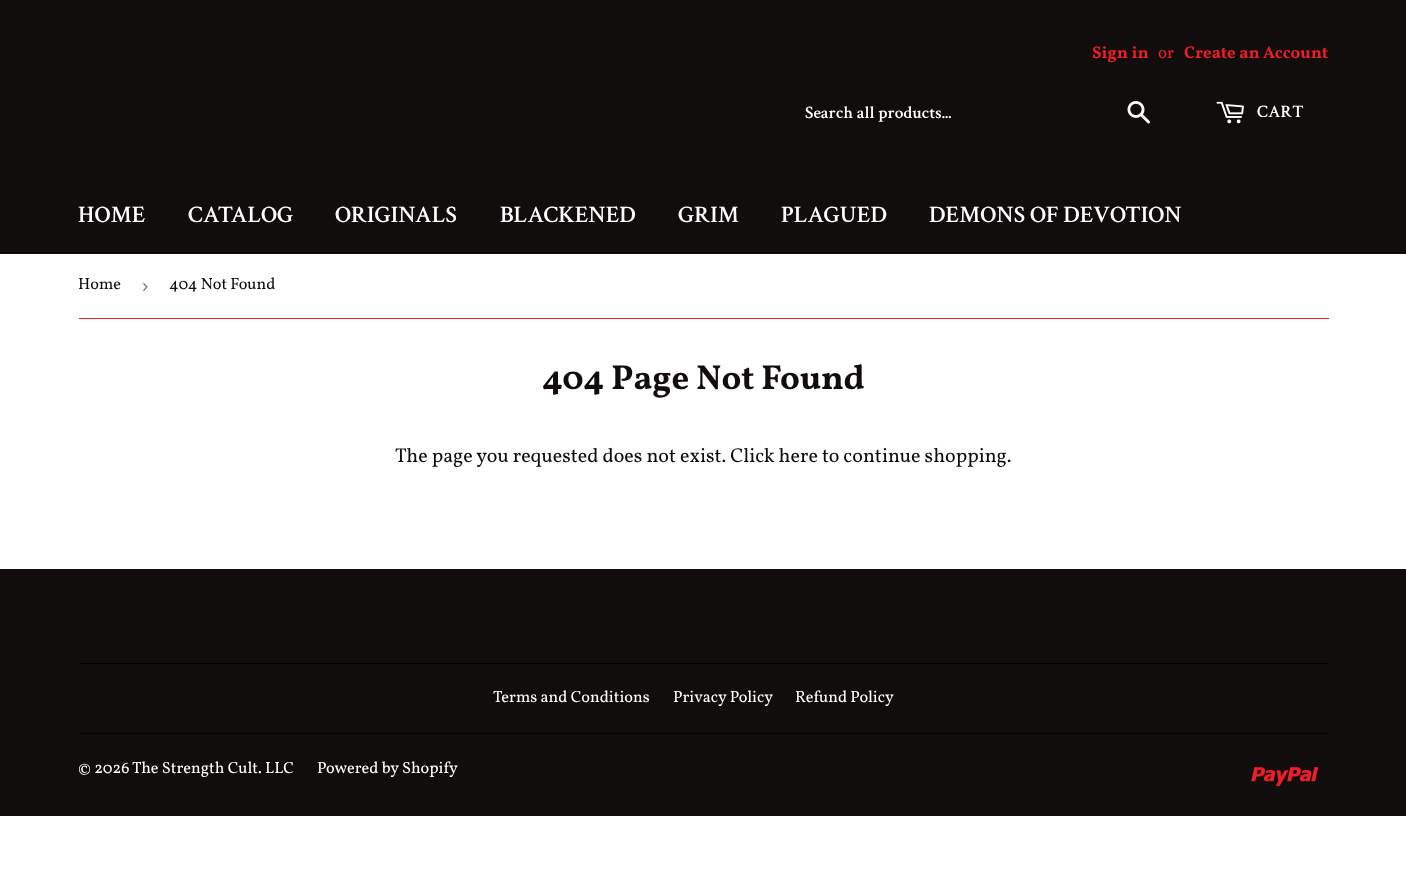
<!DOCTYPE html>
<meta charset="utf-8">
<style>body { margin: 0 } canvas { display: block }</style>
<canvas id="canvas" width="1406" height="895"></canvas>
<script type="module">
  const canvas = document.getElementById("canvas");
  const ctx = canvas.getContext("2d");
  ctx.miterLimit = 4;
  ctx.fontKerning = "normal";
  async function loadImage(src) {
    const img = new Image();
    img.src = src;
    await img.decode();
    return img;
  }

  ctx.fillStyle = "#ffffff";
  ctx.fillRect(0, 0, 1406, 895);
  ctx.fillStyle = "#110d0c";
  ctx.fillRect(0, 0, 1406, 254);
  ctx.font = "bold 17px Vollkorn";
  ctx.fillStyle = "#ef1d26";
  ctx.fillText("Sign in", 1092, 58);
  ctx.font = "17px Vollkorn";
  ctx.fillText("or", 1158, 58);
  ctx.font = "bold 17px Vollkorn";
  ctx.fillText("Create an Account", 1184, 58);
  ctx.font = "600 17.5px Crimson Text";
  ctx.fillStyle = "#ffffff";
  ctx.fillText("Search all products...", 805, 118);
  ctx.drawImage(await loadImage("img1.png"), 1127, 101, 23, 23);
  ctx.drawImage(await loadImage("img2.png"), 1216, 101, 28, 23);
  ctx.fillText("CART", 1257, 117);
  ctx.font = "600 23.75px Crimson Text";
  ctx.fillText("HOME", 78, 222);
  ctx.fillText("CATALOG", 188, 222);
  ctx.fillText("ORIGINALS", 335, 222);
  ctx.fillText("BLACKENED", 500, 222);
  ctx.fillText("GRIM", 678, 222);
  ctx.fillText("PLAGUED", 781, 222);
  ctx.fillText("DEMONS OF DEVOTION", 929, 222);
  ctx.fillStyle = "#ef1d26";
  ctx.fillRect(79, 318, 1250, 1);
  ctx.font = "16.25px Vollkorn";
  ctx.fillStyle = "#110d0c";
  ctx.fillText("Home", 78, 289);
  ctx.font = "19px Liberation Sans";
  ctx.fillStyle = "#767676";
  ctx.fillText("›", 142, 292);
  ctx.font = "16.25px Vollkorn";
  ctx.fillStyle = "#110d0c";
  ctx.fillText("404 Not Found", 169, 289);
  ctx.font = "bold 34.75px Vollkorn";
  ctx.fillText("404 Page Not Found", 542, 389);
  ctx.font = "20px Vollkorn";
  ctx.fillText("The page you requested does not exist. Click here to continue shopping.", 395, 462);
  ctx.fillRect(0, 569, 1406, 247);
  ctx.fillStyle = "#020201";
  ctx.fillRect(79, 663, 1250, 1);
  ctx.font = "16.25px Vollkorn";
  ctx.fillStyle = "#ffffff";
  ctx.fillText("Terms and Conditions", 493, 702);
  ctx.fillText("Privacy Policy", 673, 702);
  ctx.fillText("Refund Policy", 795, 702);
  ctx.fillStyle = "#020201";
  ctx.fillRect(79, 733, 1250, 1);
  ctx.fillStyle = "#ffffff";
  ctx.fillText("© 2026", 78, 773);
  ctx.fillText("The Strength Cult. LLC", 132, 773);
  ctx.fillText("Powered by Shopify", 317, 773);
  ctx.drawImage(await loadImage("img3.png"), 1251, 767, 68, 19);
</script>
